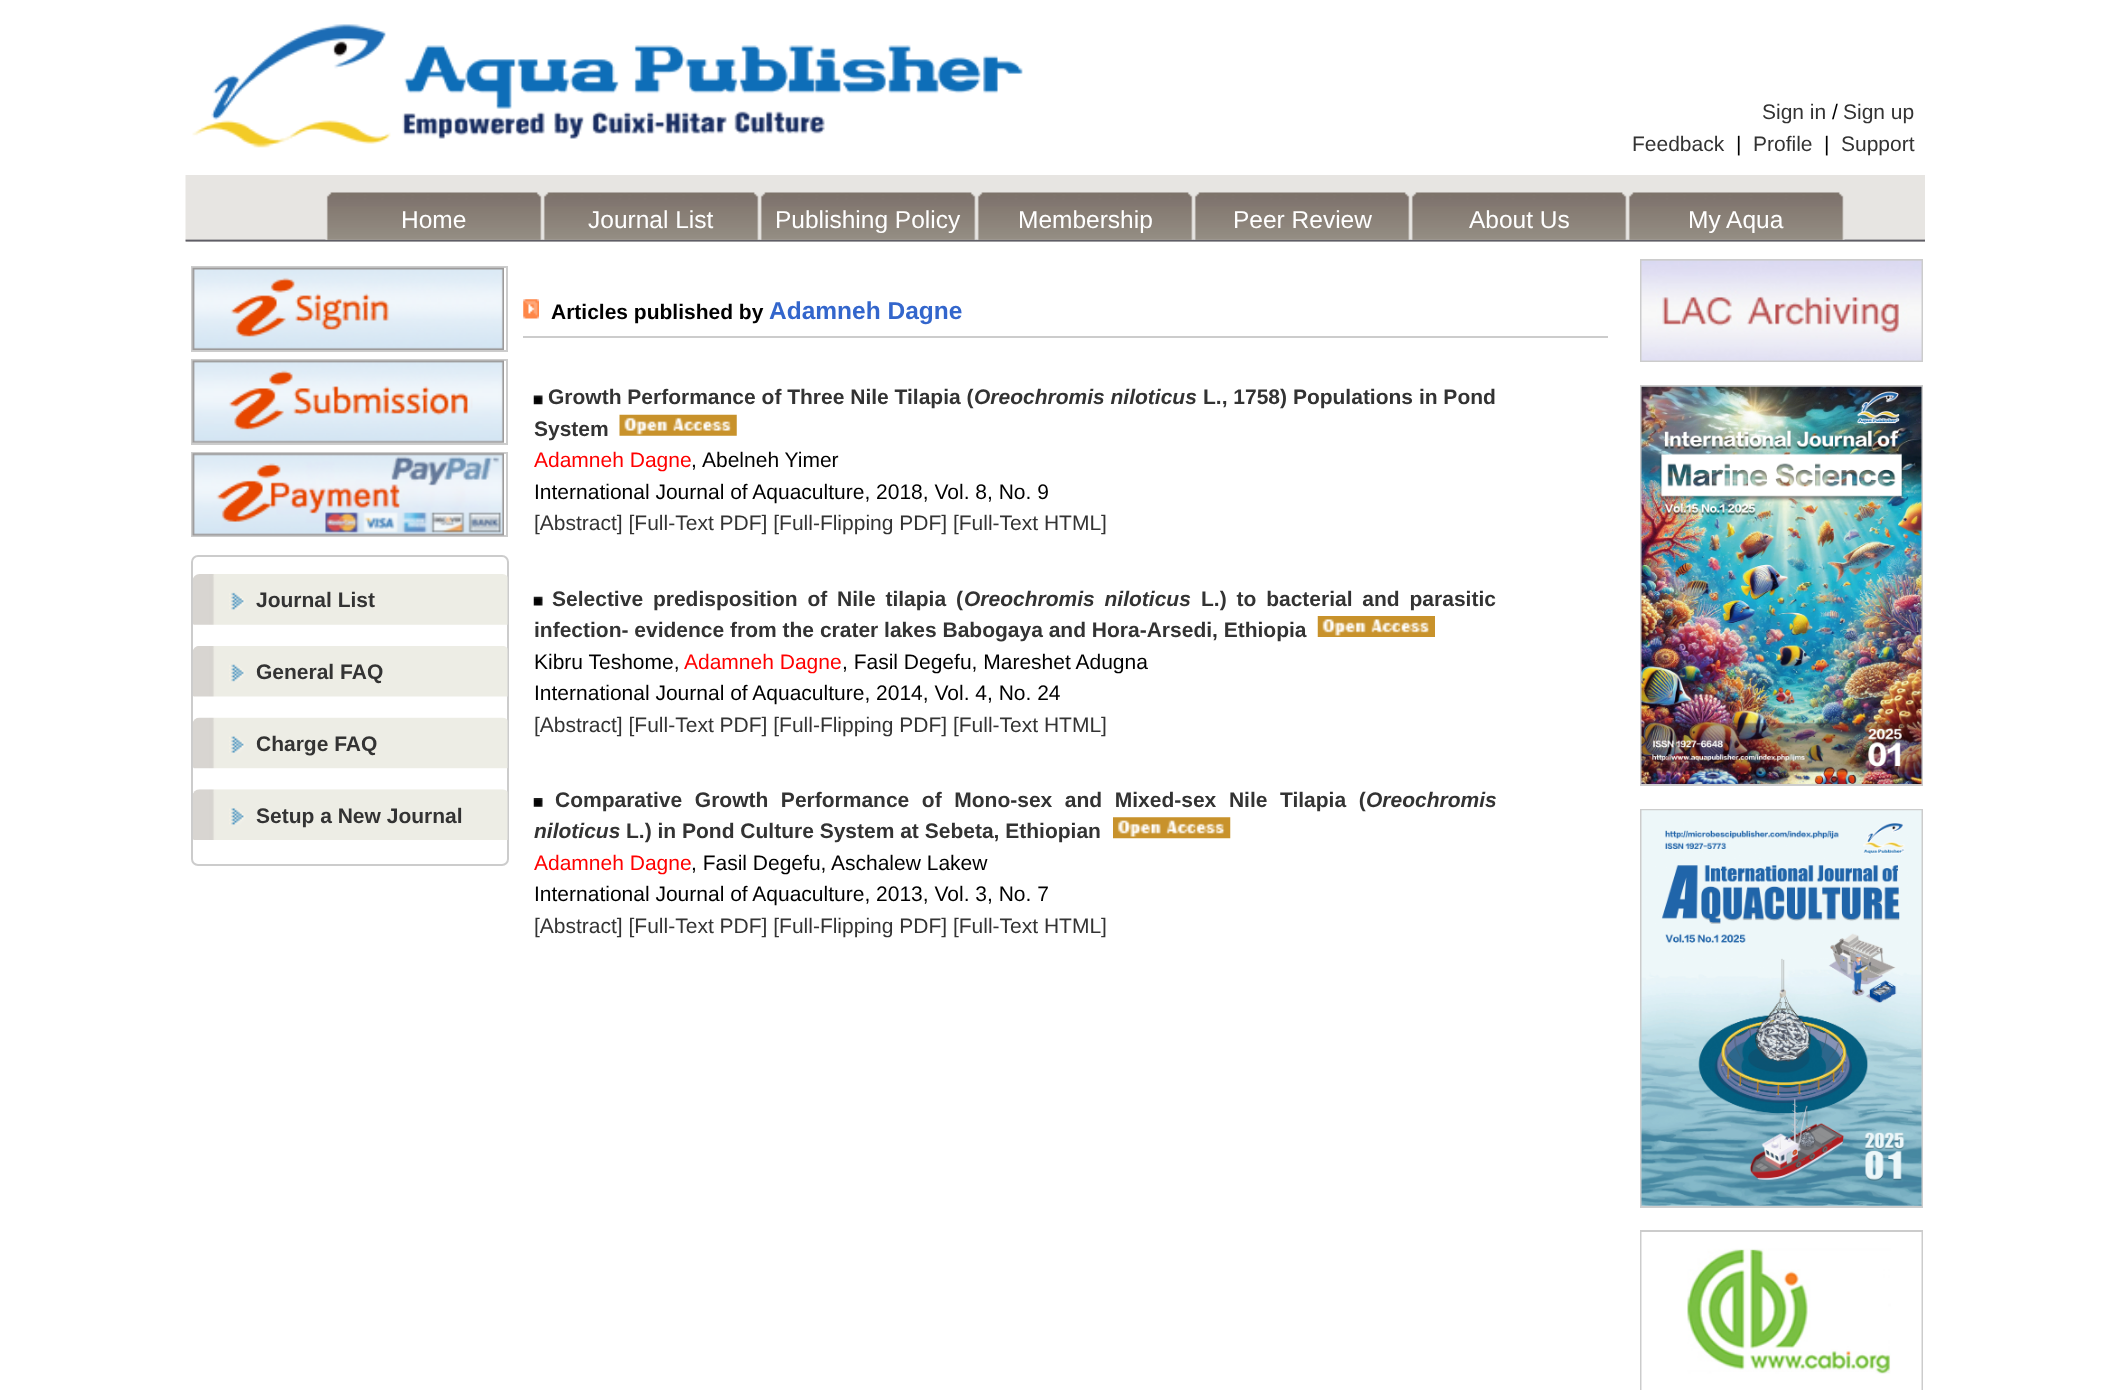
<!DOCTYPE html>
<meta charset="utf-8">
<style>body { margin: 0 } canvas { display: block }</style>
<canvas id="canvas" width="2120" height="1390"></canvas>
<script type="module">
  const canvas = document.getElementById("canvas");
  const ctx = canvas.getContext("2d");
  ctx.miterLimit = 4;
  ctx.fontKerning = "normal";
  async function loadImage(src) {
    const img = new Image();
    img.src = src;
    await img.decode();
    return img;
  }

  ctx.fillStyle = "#ffffff";
  ctx.fillRect(0, 0, 2120, 1390);
  ctx.drawImage(await loadImage("img1.png"), 192, 24, 831, 124);
  ctx.font = "21px Liberation Sans";
  ctx.fillStyle = "#333333";
  ctx.fillText("Sign in", 1762, 119);
  ctx.fillStyle = "#000000";
  ctx.fillText("/", 1832, 119);
  ctx.fillStyle = "#333333";
  ctx.fillText("Sign up", 1843, 119);
  ctx.fillText("Feedback", 1632, 151);
  ctx.fillStyle = "#000000";
  ctx.fillText("|", 1736, 151);
  ctx.fillStyle = "#333333";
  ctx.fillText("Profile", 1753, 151);
  ctx.fillStyle = "#000000";
  ctx.fillText("|", 1824, 151);
  ctx.fillStyle = "#333333";
  ctx.fillText("Support", 1841, 151);
  ctx.fillStyle = "#e7e5e2";
  ctx.fillRect(186, 241, 1739, 1);
  ctx.drawImage(await loadImage("img2.png"), 185, 175, 1740, 67);
  ctx.drawImage(await loadImage("img3.png"), 325, 192, 218, 48);
  ctx.font = "24.5px Liberation Sans";
  ctx.fillStyle = "#ffffff";
  ctx.fillText("Home", 401, 228);
  ctx.drawImage(await loadImage("img4.png"), 542, 192, 218, 48);
  ctx.fillText("Journal List", 588, 228);
  ctx.drawImage(await loadImage("img5.png"), 759, 192, 218, 48);
  ctx.fillText("Publishing Policy", 775, 228);
  ctx.drawImage(await loadImage("img6.png"), 976, 192, 218, 48);
  ctx.fillText("Membership", 1018, 228);
  ctx.drawImage(await loadImage("img5.png"), 1193, 192, 218, 48);
  ctx.fillText("Peer Review", 1233, 228);
  ctx.drawImage(await loadImage("img7.png"), 1410, 192, 218, 48);
  ctx.fillText("About Us", 1469, 228);
  ctx.drawImage(await loadImage("img8.png"), 1627, 192, 218, 48);
  ctx.fillText("My Aqua", 1688, 228);
  ctx.strokeStyle = "#cccccc";
  ctx.lineWidth = 2;
  ctx.strokeRect(192, 267, 315, 84);
  ctx.drawImage(await loadImage("img9.png"), 192, 267, 312, 83);
  ctx.strokeRect(192, 360, 315, 84);
  ctx.drawImage(await loadImage("img10.png"), 192, 360, 312, 83);
  ctx.strokeRect(192, 453, 315, 83);
  ctx.drawImage(await loadImage("img11.png"), 192, 453, 312, 83);
  ctx.beginPath();
  ctx.roundRect(192, 556, 316, 309, 6);
  ctx.stroke();
  ctx.drawImage(await loadImage("img12.png"), 193, 574, 315, 51);
  ctx.font = "bold 21px Liberation Sans";
  ctx.fillStyle = "#333333";
  ctx.fillText("Journal List", 256, 607);
  ctx.drawImage(await loadImage("img13.png"), 193, 646, 315, 51);
  ctx.fillText("General FAQ", 256, 679);
  ctx.drawImage(await loadImage("img14.png"), 193, 717, 315, 52);
  ctx.fillText("Charge FAQ", 256, 751);
  ctx.drawImage(await loadImage("img15.png"), 193, 789, 315, 51);
  ctx.fillText("Setup a New Journal", 256, 823);
  ctx.fillStyle = "#cccccc";
  ctx.fillRect(523, 336, 1085, 2);
  ctx.drawImage(await loadImage("img16.png"), 523, 299, 16, 20);
  ctx.fillStyle = "#000000";
  ctx.fillText("Articles published by", 551, 319);
  ctx.font = "bold 24.5px Liberation Sans";
  ctx.fillStyle = "#3366cc";
  ctx.fillText("Adamneh Dagne", 769, 319);
  ctx.drawImage(await loadImage("img17.png"), 533, 395, 10, 10);
  ctx.font = "bold 21px Liberation Sans";
  ctx.fillStyle = "#333333";
  ctx.fillText("Growth Performance of Three Nile Tilapia (", 548, 404);
  ctx.font = "italic bold 21px Liberation Sans";
  ctx.fillText("Oreochromis niloticus", 974, 404);
  ctx.font = "bold 21px Liberation Sans";
  ctx.fillText("L., 1758) Populations in Pond", 1203, 404);
  ctx.fillText("System", 534, 436);
  ctx.drawImage(await loadImage("img18.png"), 619, 414, 118, 22);
  ctx.font = "21px Liberation Sans";
  ctx.fillStyle = "#ff0000";
  ctx.fillText("Adamneh Dagne", 534, 467);
  ctx.fillStyle = "#000000";
  ctx.fillText(",", 691, 467);
  ctx.fillText("Abelneh Yimer", 702, 467);
  ctx.fillText("International Journal of Aquaculture, 2018, Vol. 8, No. 9", 534, 499);
  ctx.fillStyle = "#333333";
  ctx.fillText("[Abstract] [Full-Text PDF] [Full-Flipping PDF] [Full-Text HTML]", 534, 530);
  ctx.drawImage(await loadImage("img19.png"), 533, 596, 10, 10);
  ctx.wordSpacing = "4px";
  ctx.font = "bold 21px Liberation Sans";
  ctx.fillText("Selective predisposition of Nile tilapia (", 552, 606);
  ctx.font = "italic bold 21px Liberation Sans";
  ctx.fillText("Oreochromis niloticus", 964, 606);
  ctx.font = "bold 21px Liberation Sans";
  ctx.fillText("L.) to bacterial and parasitic", 1201, 606);
  ctx.wordSpacing = "0px";
  ctx.fillText("infection- evidence from the crater lakes Babogaya and Hora-Arsedi, Ethiopia", 534, 637);
  ctx.drawImage(await loadImage("img20.png"), 1317, 616, 118, 21);
  ctx.font = "21px Liberation Sans";
  ctx.fillStyle = "#000000";
  ctx.fillText("Kibru Teshome,", 534, 669);
  ctx.fillStyle = "#ff0000";
  ctx.fillText("Adamneh Dagne", 684, 669);
  ctx.fillStyle = "#000000";
  ctx.fillText(", Fasil Degefu, Mareshet Adugna", 842, 669);
  ctx.fillText("International Journal of Aquaculture, 2014, Vol. 4, No. 24", 534, 700);
  ctx.fillStyle = "#333333";
  ctx.fillText("[Abstract] [Full-Text PDF] [Full-Flipping PDF] [Full-Text HTML]", 534, 732);
  ctx.drawImage(await loadImage("img21.png"), 533, 798, 10, 9);
  ctx.wordSpacing = "6.75px";
  ctx.font = "bold 21px Liberation Sans";
  ctx.fillText("Comparative Growth Performance of Mono-sex and Mixed-sex Nile Tilapia (", 555, 807);
  ctx.wordSpacing = "0px";
  ctx.font = "italic bold 21px Liberation Sans";
  ctx.fillText("Oreochromis", 1366, 807);
  ctx.fillText("niloticus", 534, 838);
  ctx.font = "bold 21px Liberation Sans";
  ctx.fillText("L.) in Pond Culture System at Sebeta, Ethiopian", 626, 838);
  ctx.drawImage(await loadImage("img22.png"), 1113, 817, 118, 22);
  ctx.font = "21px Liberation Sans";
  ctx.fillStyle = "#ff0000";
  ctx.fillText("Adamneh Dagne", 534, 870);
  ctx.fillStyle = "#000000";
  ctx.fillText(", Fasil Degefu,", 691, 870);
  ctx.fillText("Aschalew Lakew", 831, 870);
  ctx.fillText("International Journal of Aquaculture, 2013, Vol. 3, No. 7", 534, 901);
  ctx.fillStyle = "#333333";
  ctx.fillText("[Abstract] [Full-Text PDF] [Full-Flipping PDF] [Full-Text HTML]", 534, 933);
  ctx.strokeRect(1641, 260, 281, 101);
  ctx.drawImage(await loadImage("img23.png"), 1641, 260, 281, 101);
  ctx.strokeRect(1641, 386, 281, 399);
  ctx.drawImage(await loadImage("img24.png"), 1641, 386, 281, 398);
  ctx.strokeRect(1641, 810, 281, 397);
  ctx.drawImage(await loadImage("img25.png"), 1641, 810, 281, 396);
  ctx.strokeRect(1641, 1231, 281, 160);
  ctx.drawImage(await loadImage("img26.png"), 1641, 1232, 281, 158);
</script>
